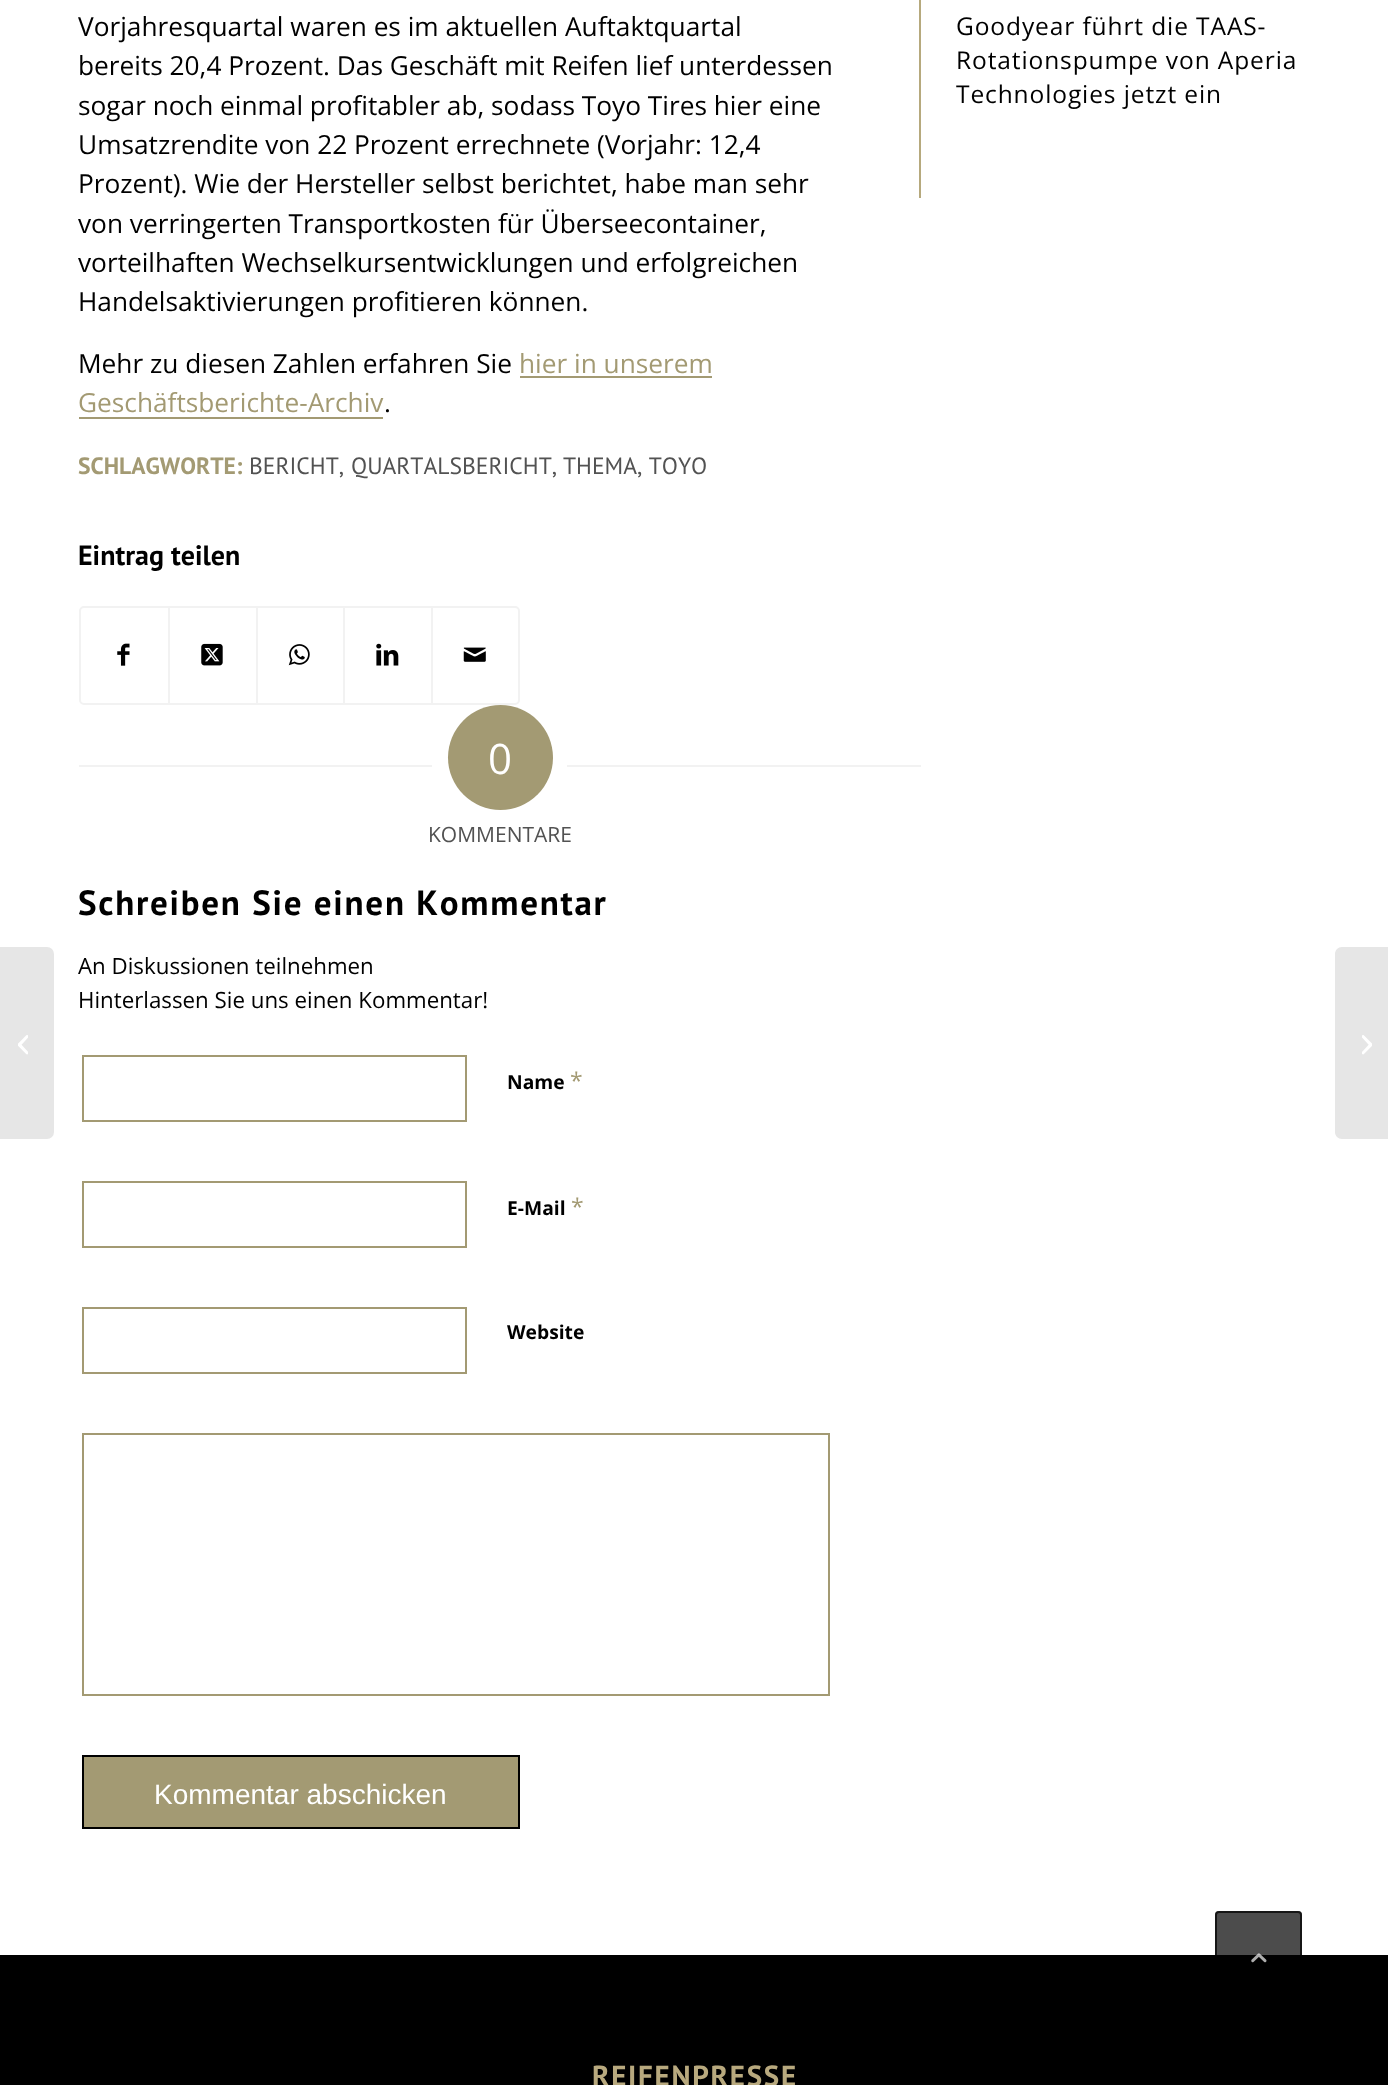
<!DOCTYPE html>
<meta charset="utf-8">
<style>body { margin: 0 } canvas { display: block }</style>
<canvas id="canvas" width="1388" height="2085"></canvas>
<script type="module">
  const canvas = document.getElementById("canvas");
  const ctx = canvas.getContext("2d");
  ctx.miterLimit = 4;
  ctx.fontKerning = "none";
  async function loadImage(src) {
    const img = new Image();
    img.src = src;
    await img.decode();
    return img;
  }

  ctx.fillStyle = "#ffffff";
  ctx.fillRect(0, 0, 1388, 2085);
  ctx.fillStyle = "#e6e6e6";
  ctx.beginPath();
  ctx.roundRect(0, 947, 54, 192, [0, 7, 7, 0]);
  ctx.fill();
  ctx.drawImage(await loadImage("img1.png"), 18, 1035, 10, 20);
  ctx.font = "26.25px Open Sans";
  ctx.fillStyle = "#000000";
  ctx.fillText("Vorjahresquartal waren es im aktuellen Auftaktquartal", 78, 36);
  ctx.fillText("bereits 20,4 Prozent. Das Geschäft mit Reifen lief unterdessen", 78, 75);
  ctx.fillText("sogar noch einmal profitabler ab, sodass Toyo Tires hier eine", 78, 115);
  ctx.fillText("Umsatzrendite von 22 Prozent errechnete (Vorjahr: 12,4", 78, 154);
  ctx.fillText("Prozent). Wie der Hersteller selbst berichtet, habe man sehr", 78, 193);
  ctx.fillText("von verringerten Transportkosten für Überseecontainer,", 78, 233);
  ctx.fillText("vorteilhaften Wechselkursentwicklungen und erfolgreichen", 78, 272);
  ctx.fillText("Handelsaktivierungen profitieren können.", 78, 311);
  ctx.fillText("Mehr zu diesen Zahlen erfahren Sie", 78, 373);
  ctx.fillStyle = "#a39a73";
  ctx.fillText("hier in unserem", 519, 373);
  ctx.fillRect(520, 376, 192, 2);
  ctx.fillText("Geschäftsberichte-Archiv", 78, 412);
  ctx.fillRect(79, 417, 304, 2);
  ctx.fillStyle = "#000000";
  ctx.fillText(".", 384, 412);
  ctx.font = "bold 23.6px PT Sans";
  ctx.fillStyle = "#a39a73";
  ctx.fillText("SCHLAGWORTE:", 78, 474);
  ctx.font = "23.6px PT Sans";
  ctx.fillStyle = "#525252";
  ctx.fillText("BERICHT,", 249, 474);
  ctx.fillText("QUARTALSBERICHT,", 351, 474);
  ctx.fillText("THEMA, TOYO", 563, 474);
  ctx.font = "bold 28px PT Sans";
  ctx.fillStyle = "#000000";
  ctx.fillText("Eintrag teilen", 78, 565);
  ctx.beginPath();
  ctx.roundRect(80, 607, 439, 97, 4);
  ctx.strokeStyle = "#f2f2f2";
  ctx.lineWidth = 2;
  ctx.stroke();
  ctx.drawImage(await loadImage("img2.png"), 117, 643, 13, 23);
  ctx.fillStyle = "#f2f2f2";
  ctx.fillRect(168, 607, 2, 97);
  ctx.drawImage(await loadImage("img3.png"), 201, 643, 22, 23);
  ctx.fillRect(256, 607, 2, 97);
  ctx.drawImage(await loadImage("img4.png"), 288, 644, 22, 22);
  ctx.fillRect(343, 607, 2, 97);
  ctx.drawImage(await loadImage("img5.png"), 376, 643, 23, 23);
  ctx.fillRect(431, 607, 2, 97);
  ctx.drawImage(await loadImage("img6.png"), 463, 647, 23, 15);
  ctx.fillRect(79, 765, 353, 2);
  ctx.fillStyle = "#a39a73";
  ctx.beginPath();
  ctx.arc(500.5, 757.5, 52.5, 0, Math.PI * 2);
  ctx.fill();
  ctx.font = "42px Open Sans";
  ctx.fillStyle = "#ffffff";
  ctx.fillText("0", 488, 774);
  ctx.fillStyle = "#f2f2f2";
  ctx.fillRect(567, 765, 354, 2);
  ctx.font = "21px Open Sans";
  ctx.fillStyle = "#525252";
  ctx.fillText("KOMMENTARE", 428, 842);
  ctx.letterSpacing = "1.75px";
  ctx.font = "bold 35px PT Sans";
  ctx.fillStyle = "#000000";
  ctx.fillText("Schreiben Sie einen Kommentar", 78, 915);
  ctx.letterSpacing = "0px";
  ctx.font = "22.3px Open Sans";
  ctx.fillText("An Diskussionen teilnehmen", 78, 974);
  ctx.fillText("Hinterlassen Sie uns einen Kommentar!", 78, 1008);
  ctx.strokeStyle = "#a39a73";
  ctx.strokeRect(83, 1056, 383, 65);
  ctx.font = "bold 19.25px Open Sans";
  ctx.fillText("Name", 507, 1089);
  ctx.font = "23px Open Sans";
  ctx.fillStyle = "#a39a73";
  ctx.fillText("*", 570, 1089);
  ctx.strokeRect(83, 1182, 383, 65);
  ctx.font = "bold 19.25px Open Sans";
  ctx.fillStyle = "#000000";
  ctx.fillText("E-Mail", 507, 1215);
  ctx.font = "23px Open Sans";
  ctx.fillStyle = "#a39a73";
  ctx.fillText("*", 571, 1215);
  ctx.strokeRect(83, 1308, 383, 65);
  ctx.font = "bold 19.25px Open Sans";
  ctx.fillStyle = "#000000";
  ctx.fillText("Website", 507, 1339);
  ctx.strokeRect(83, 1434, 746, 261);
  ctx.fillStyle = "#a39a73";
  ctx.beginPath();
  ctx.rect(83, 1756, 436, 72);
  ctx.fill();
  ctx.strokeStyle = "#000000";
  ctx.stroke();
  ctx.font = "28px Liberation Sans";
  ctx.fillStyle = "#ffffff";
  ctx.fillText("Kommentar abschicken", 154, 1804);
  ctx.fillStyle = "#b6a97d";
  ctx.fillRect(919, 0, 2, 198);
  ctx.letterSpacing = "0.9px";
  ctx.font = "24.5px Open Sans";
  ctx.fillStyle = "#000000";
  ctx.fillText("Goodyear führt die TAAS-", 956, 35);
  ctx.fillText("Rotationspumpe von Aperia", 956, 69);
  ctx.fillText("Technologies jetzt ein", 956, 103);
  ctx.fillRect(0, 1955, 1388, 130);
  ctx.letterSpacing = "1.75px";
  ctx.font = "bold 29px PT Sans";
  ctx.fillStyle = "#b8a97e";
  ctx.fillText("REIFENPRESSE", 592, 2086);
  ctx.fillStyle = "#e6e6e6";
  ctx.beginPath();
  ctx.moveTo(1342, 947);
  ctx.lineTo(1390, 947);
  ctx.lineTo(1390, 1139);
  ctx.lineTo(1342, 1139);
  ctx.bezierCurveTo(1338, 1139, 1335, 1136, 1335, 1132);
  ctx.lineTo(1335, 954);
  ctx.bezierCurveTo(1335, 950, 1338, 947, 1342, 947);
  ctx.closePath();
  ctx.fill();
  ctx.drawImage(await loadImage("img7.png"), 1362, 1035, 10, 20);
  ctx.fillStyle = "rgba(0, 0, 0, 0.7)";
  ctx.beginPath();
  ctx.roundRect(1215, 1911, 87, 88, 4);
  ctx.fill();
  ctx.beginPath();
  ctx.roundRect(1216, 1912, 85, 86, 3);
  ctx.strokeStyle = "rgba(0, 0, 0, 0.7)";
  ctx.stroke();
  ctx.drawImage(await loadImage("img8.png"), 1251, 1953, 16, 10);
</script>
